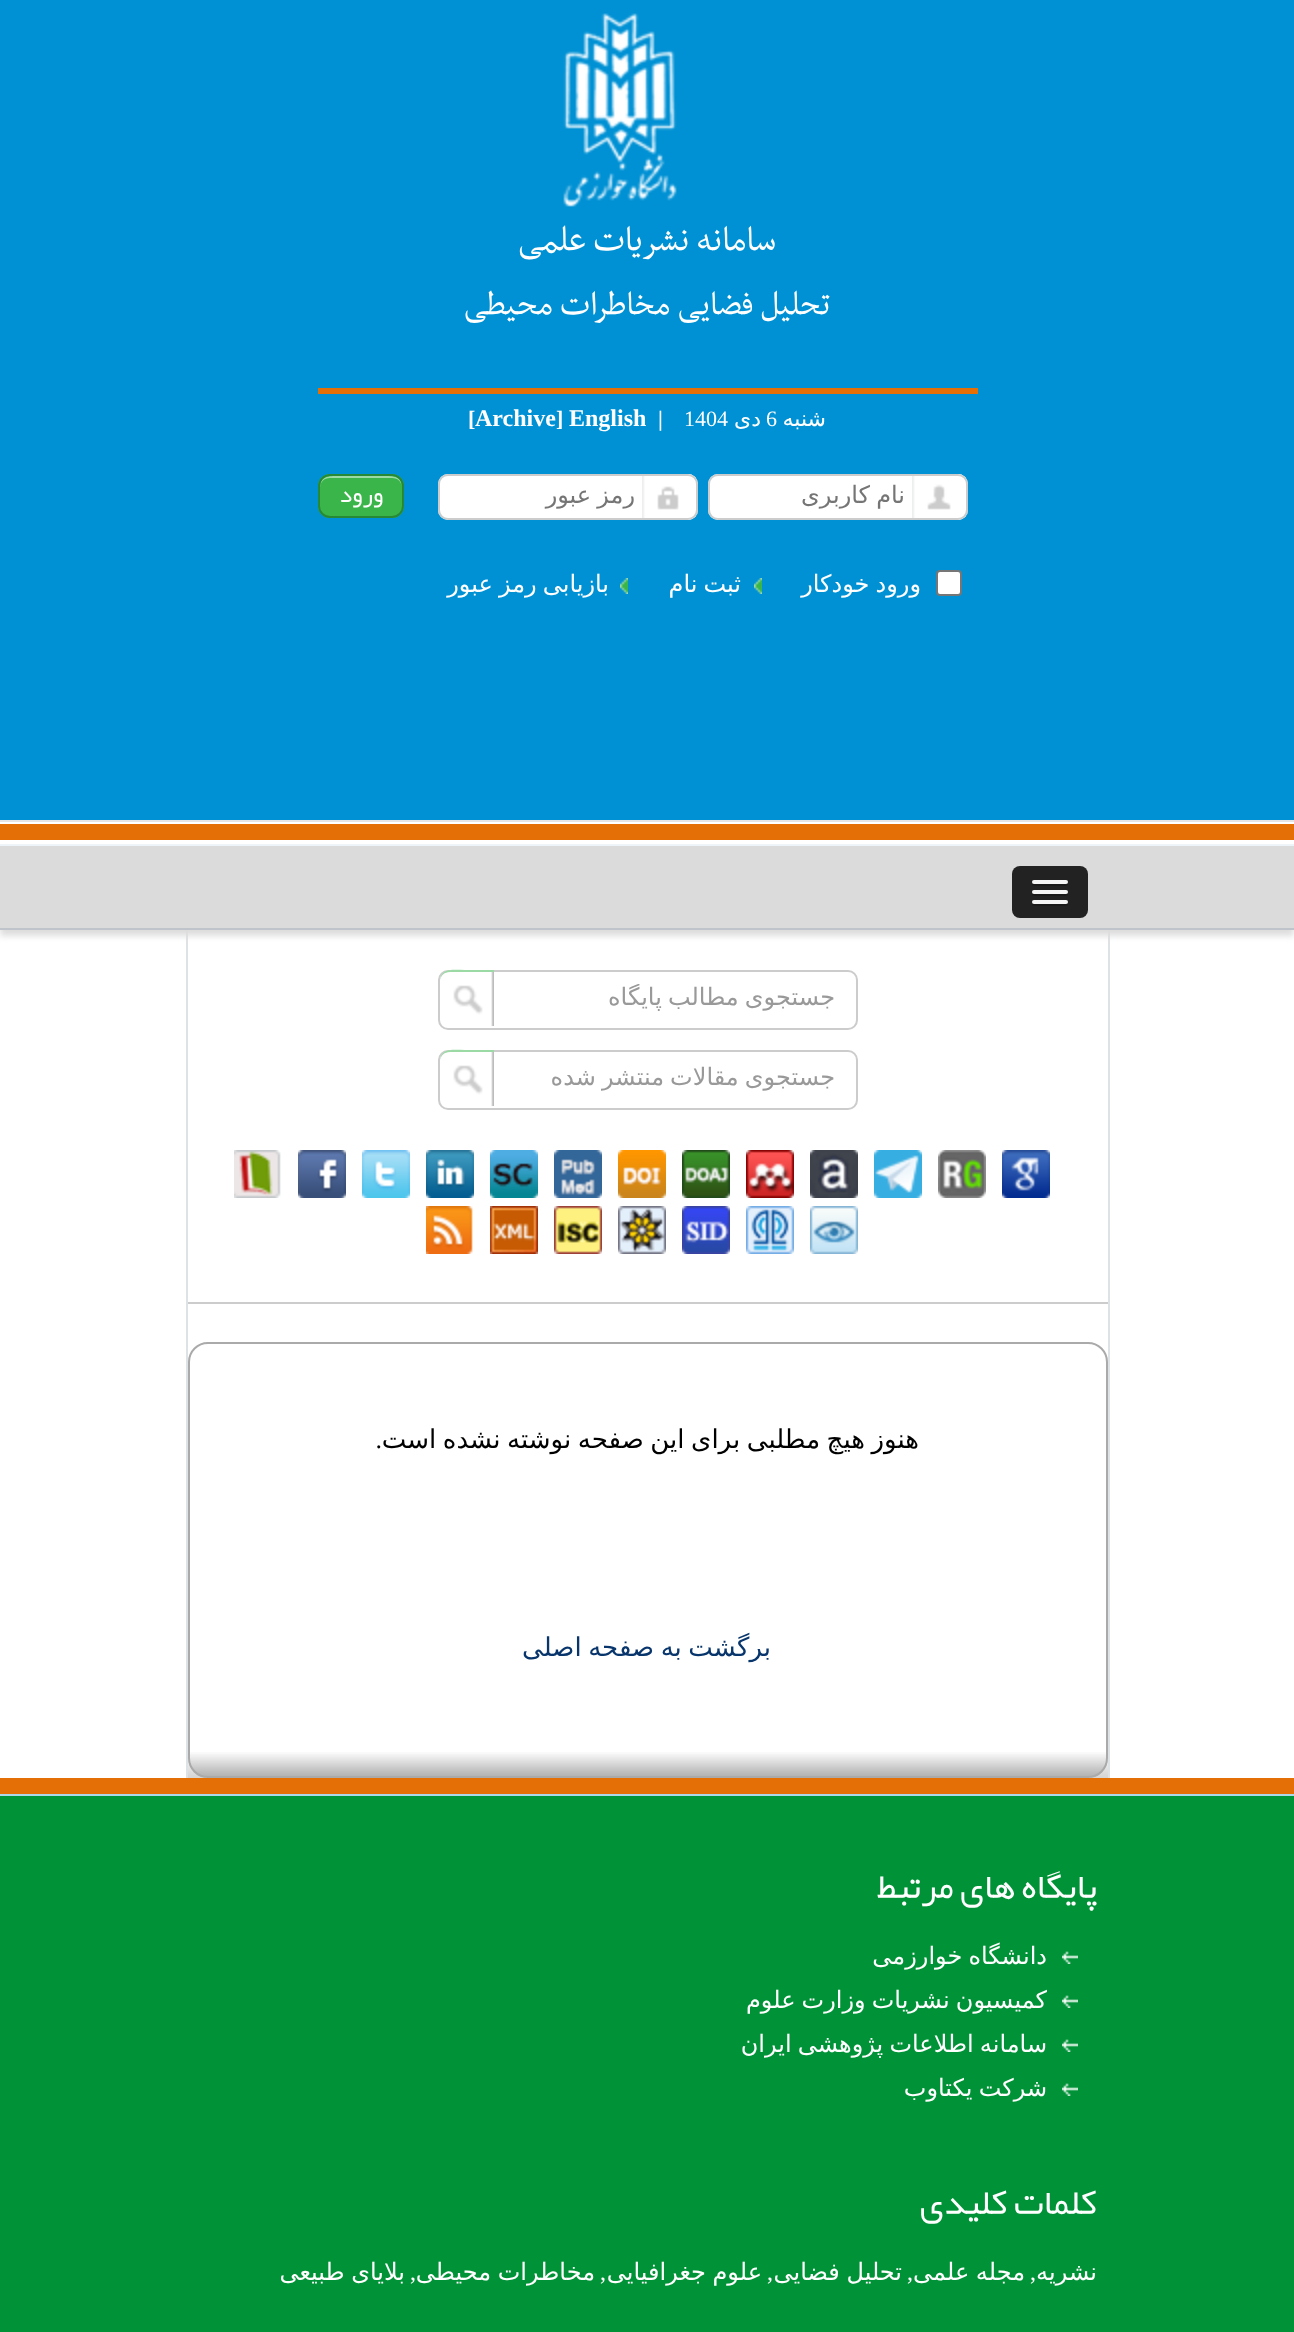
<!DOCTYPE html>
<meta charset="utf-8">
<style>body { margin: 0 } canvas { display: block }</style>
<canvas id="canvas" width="1294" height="2332"></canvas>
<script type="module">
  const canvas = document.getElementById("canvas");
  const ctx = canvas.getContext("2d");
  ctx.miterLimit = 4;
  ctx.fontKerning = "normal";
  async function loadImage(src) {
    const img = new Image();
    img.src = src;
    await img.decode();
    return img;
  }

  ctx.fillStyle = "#ffffff";
  ctx.fillRect(0, 0, 1294, 2332);
  ctx.fillStyle = "#0091d4";
  ctx.fillRect(0, 0, 1294, 820);
  ctx.fillStyle = "#e5e5e5";
  ctx.fillRect(0, 820, 1294, 2);
  ctx.drawImage(await loadImage("img1.png"), 563, 13, 114, 194);
  ctx.direction = "rtl";
  ctx.font = "40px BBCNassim";
  ctx.fillStyle = "#ffffff";
  ctx.fillText("سامانه نشریات علمی", 776, 250);
  ctx.font = "38px BBCNassim";
  ctx.fillText("تحلیل فضایی مخاطرات محیطی", 830, 314);
  ctx.fillStyle = "#e36f06";
  ctx.fillRect(318, 388, 660, 6);
  ctx.font = "22px DejaVu Sans";
  ctx.fillStyle = "#ffffff";
  ctx.fillText("شنبه", 826, 426);
  ctx.direction = "ltr";
  ctx.font = "22px Liberation Serif";
  ctx.fillText("6", 766, 426);
  ctx.direction = "rtl";
  ctx.font = "22px DejaVu Sans";
  ctx.fillText("دی", 761, 426);
  ctx.direction = "ltr";
  ctx.font = "22px Liberation Serif";
  ctx.fillText("1404", 684, 426);
  ctx.font = "bold 22px Liberation Serif";
  ctx.fillText("|", 658, 426);
  ctx.font = "bold 24px Liberation Serif";
  ctx.fillText("English", 569, 426);
  ctx.font = "bold 22px Liberation Serif";
  ctx.fillText("]", 556, 426);
  ctx.font = "bold 24px Liberation Serif";
  ctx.fillText("Archive", 475, 426);
  ctx.font = "bold 22px Liberation Serif";
  ctx.fillText("[", 468, 426);
  ctx.beginPath();
  ctx.roundRect(708, 474, 260, 46, 10);
  ctx.fill();
  ctx.drawImage(await loadImage("img2.png"), 912, 474, 54, 46);
  ctx.beginPath();
  ctx.roundRect(709, 475, 258, 44, 9);
  ctx.strokeStyle = "#cccccc";
  ctx.lineWidth = 2;
  ctx.stroke();
  ctx.wordSpacing = "-1.5px";
  ctx.direction = "rtl";
  ctx.font = "24px DejaVu Sans";
  ctx.fillStyle = "#757575";
  ctx.fillText("نام کاربری", 905, 503);
  ctx.fillStyle = "#ffffff";
  ctx.beginPath();
  ctx.roundRect(438, 474, 260, 46, 10);
  ctx.fill();
  ctx.drawImage(await loadImage("img3.png"), 642, 474, 54, 46);
  ctx.beginPath();
  ctx.roundRect(439, 475, 258, 44, 9);
  ctx.stroke();
  ctx.fillStyle = "#757575";
  ctx.fillText("رمز عبور", 635, 503);
  ctx.fillStyle = "#39b549";
  ctx.beginPath();
  ctx.roundRect(318, 474, 86, 44, 12);
  ctx.fill();
  ctx.fillStyle = "#9cdaa5";
  ctx.beginPath();
  ctx.moveTo(330, 478);
  ctx.lineTo(392, 478);
  ctx.bezierCurveTo(398, 478, 402, 482, 402, 488);
  ctx.bezierCurveTo(402, 475, 392, 476, 382, 476);
  ctx.lineTo(340, 476);
  ctx.bezierCurveTo(330, 476, 320, 475, 320, 488);
  ctx.bezierCurveTo(320, 482, 324, 478, 330, 478);
  ctx.closePath();
  ctx.fill();
  ctx.beginPath();
  ctx.roundRect(319, 475, 84, 42, 11);
  ctx.strokeStyle = "#278935";
  ctx.stroke();
  ctx.wordSpacing = "0px";
  ctx.font = "24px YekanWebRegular";
  ctx.fillStyle = "#ffffff";
  ctx.fillText("ورود", 383, 502);
  ctx.beginPath();
  ctx.roundRect(937, 571, 24, 24, 3);
  ctx.fill();
  ctx.strokeStyle = "#767676";
  ctx.stroke();
  ctx.wordSpacing = "-1.5px";
  ctx.font = "24px DejaVu Sans";
  ctx.fillText("ورود خودکار", 921, 592);
  ctx.drawImage(await loadImage("img4.png"), 754, 578, 8, 16);
  ctx.fillText("ثبت نام", 741, 592);
  ctx.drawImage(await loadImage("img4.png"), 620, 578, 8, 16);
  ctx.fillText("بازیابی رمز عبور", 609, 592);
  ctx.fillStyle = "#e36f06";
  ctx.fillRect(0, 824, 1294, 16);
  ctx.fillStyle = "#dee2e4";
  ctx.fillRect(1108, 930, 2, 848);
  ctx.fillRect(186, 930, 2, 848);
  ctx.fillStyle = "#dddddd";
  ctx.filter = "blur(3px)";
  ctx.beginPath();
  ctx.rect(0, 850, 1294, 86);
  ctx.fill();
  ctx.filter = "none";
  ctx.fillStyle = "#dbdbdb";
  ctx.fillRect(0, 846, 1294, 82);
  ctx.fillStyle = "#edf4fa";
  ctx.fillRect(0, 844, 1294, 2);
  ctx.fillStyle = "#bec4c9";
  ctx.fillRect(0, 928, 1294, 2);
  ctx.fillStyle = "#222222";
  ctx.beginPath();
  ctx.roundRect(1012, 866, 76, 52, 8);
  ctx.fill();
  ctx.fillStyle = "#1a1a1a";
  ctx.beginPath();
  ctx.moveTo(1032.5, 883);
  ctx.bezierCurveTo(1030, 887, 1039, 886, 1039.5, 886);
  ctx.lineTo(1060.5, 886);
  ctx.bezierCurveTo(1061, 886, 1070, 887, 1067.5, 883);
  ctx.bezierCurveTo(1067.5, 883.5, 1066.5, 884, 1066, 884);
  ctx.lineTo(1034, 884);
  ctx.bezierCurveTo(1033.5, 884, 1032.5, 883.5, 1032.5, 883);
  ctx.closePath();
  ctx.fill();
  ctx.fillStyle = "#f5f5f5";
  ctx.beginPath();
  ctx.roundRect(1032, 880, 36, 4, 2);
  ctx.fill();
  ctx.fillStyle = "#1a1a1a";
  ctx.beginPath();
  ctx.moveTo(1032.5, 893);
  ctx.bezierCurveTo(1030, 897, 1039, 896, 1039.5, 896);
  ctx.lineTo(1060.5, 896);
  ctx.bezierCurveTo(1061, 896, 1070, 897, 1067.5, 893);
  ctx.bezierCurveTo(1067.5, 893.5, 1066.5, 894, 1066, 894);
  ctx.lineTo(1034, 894);
  ctx.bezierCurveTo(1033.5, 894, 1032.5, 893.5, 1032.5, 893);
  ctx.closePath();
  ctx.fill();
  ctx.fillStyle = "#f5f5f5";
  ctx.beginPath();
  ctx.roundRect(1032, 890, 36, 4, 2);
  ctx.fill();
  ctx.fillStyle = "#1a1a1a";
  ctx.beginPath();
  ctx.moveTo(1032.5, 903);
  ctx.bezierCurveTo(1030, 907, 1039, 906, 1039.5, 906);
  ctx.lineTo(1060.5, 906);
  ctx.bezierCurveTo(1061, 906, 1070, 907, 1067.5, 903);
  ctx.bezierCurveTo(1067.5, 903.5, 1066.5, 904, 1066, 904);
  ctx.lineTo(1034, 904);
  ctx.bezierCurveTo(1033.5, 904, 1032.5, 903.5, 1032.5, 903);
  ctx.closePath();
  ctx.fill();
  ctx.fillStyle = "#f5f5f5";
  ctx.beginPath();
  ctx.roundRect(1032, 900, 36, 4, 2);
  ctx.fill();
  ctx.drawImage(await loadImage("img5.png"), 188, 1754, 920, 24);
  ctx.fillStyle = "#cccccc";
  ctx.fillRect(188, 1302, 920, 2);
  ctx.beginPath();
  ctx.roundRect(439, 971, 418, 58, 9);
  ctx.strokeStyle = "#cccccc";
  ctx.stroke();
  ctx.save();
  ctx.beginPath();
  ctx.rect(520, 984, 316, 30);
  ctx.clip();
  ctx.fillStyle = "#999999";
  ctx.fillText("جستجوی مطالب پایگاه", 835, 1005);
  ctx.restore();
  ctx.drawImage(await loadImage("img6.png"), 453, 972, 41, 54);
  ctx.fillStyle = "#9cdaa5";
  ctx.beginPath();
  ctx.moveTo(450, 972);
  ctx.lineTo(494, 972);
  ctx.lineTo(494, 970);
  ctx.lineTo(465, 970);
  ctx.bezierCurveTo(454, 970, 440, 967, 440, 982);
  ctx.bezierCurveTo(440, 976, 444, 972, 450, 972);
  ctx.closePath();
  ctx.fill();
  ctx.beginPath();
  ctx.roundRect(439, 1051, 418, 58, 9);
  ctx.stroke();
  ctx.save();
  ctx.beginPath();
  ctx.rect(520, 1064, 316, 30);
  ctx.clip();
  ctx.fillStyle = "#999999";
  ctx.fillText("جستجوی مقالات منتشر شده", 835, 1085);
  ctx.restore();
  ctx.drawImage(await loadImage("img6.png"), 453, 1052, 41, 54);
  ctx.beginPath();
  ctx.moveTo(450, 1052);
  ctx.lineTo(494, 1052);
  ctx.lineTo(494, 1050);
  ctx.lineTo(465, 1050);
  ctx.bezierCurveTo(454, 1050, 440, 1047, 440, 1062);
  ctx.bezierCurveTo(440, 1056, 444, 1052, 450, 1052);
  ctx.closePath();
  ctx.fill();
  ctx.drawImage(await loadImage("img7.png"), 1002, 1150, 48, 48);
  ctx.drawImage(await loadImage("img8.png"), 938, 1150, 48, 48);
  ctx.drawImage(await loadImage("img9.png"), 874, 1150, 48, 48);
  ctx.drawImage(await loadImage("img10.png"), 810, 1150, 48, 48);
  ctx.drawImage(await loadImage("img11.png"), 746, 1150, 48, 48);
  ctx.drawImage(await loadImage("img12.png"), 682, 1150, 48, 48);
  ctx.drawImage(await loadImage("img13.png"), 618, 1150, 48, 48);
  ctx.drawImage(await loadImage("img14.png"), 554, 1150, 48, 48);
  ctx.drawImage(await loadImage("img15.png"), 490, 1150, 48, 48);
  ctx.drawImage(await loadImage("img16.png"), 426, 1150, 48, 48);
  ctx.drawImage(await loadImage("img17.png"), 362, 1150, 48, 48);
  ctx.drawImage(await loadImage("img18.png"), 298, 1150, 48, 48);
  ctx.drawImage(await loadImage("img19.png"), 234, 1150, 47, 48);
  ctx.drawImage(await loadImage("img20.png"), 810, 1206, 48, 48);
  ctx.drawImage(await loadImage("img21.png"), 746, 1206, 48, 48);
  ctx.drawImage(await loadImage("img22.png"), 682, 1206, 48, 48);
  ctx.drawImage(await loadImage("img23.png"), 618, 1206, 48, 48);
  ctx.drawImage(await loadImage("img24.png"), 554, 1206, 48, 48);
  ctx.drawImage(await loadImage("img25.png"), 490, 1206, 48, 48);
  ctx.drawImage(await loadImage("img26.png"), 426, 1206, 47, 48);
  ctx.drawImage(await loadImage("img27.png"), 188, 1752, 920, 24);
  ctx.beginPath();
  ctx.roundRect(189, 1343, 918, 434, 19);
  ctx.strokeStyle = "#aaaaaa";
  ctx.stroke();
  ctx.wordSpacing = "-1.75px";
  ctx.font = "26px DejaVu Sans";
  ctx.fillStyle = "#000000";
  ctx.fillText("هنوز هیچ مطلبی برای این صفحه نوشته نشده است", 919, 1448);
  ctx.wordSpacing = "0px";
  ctx.font = "26px Liberation Serif";
  ctx.fillText(".", 382, 1448);
  ctx.wordSpacing = "-1.75px";
  ctx.font = "26px DejaVu Sans";
  ctx.fillStyle = "#08366c";
  ctx.fillText("برگشت به صفحه اصلی", 771, 1656);
  ctx.fillStyle = "#009237";
  ctx.fillRect(0, 1796, 1294, 536);
  ctx.fillStyle = "#e36f06";
  ctx.fillRect(0, 1778, 1294, 16);
  ctx.fillStyle = "#abd7e9";
  ctx.fillRect(0, 1794, 1294, 2);
  ctx.wordSpacing = "0px";
  ctx.font = "36px YekanWebRegular";
  ctx.fillStyle = "#ffffff";
  ctx.fillText("پایگاه های مرتبط", 1097, 1898);
  ctx.drawImage(await loadImage("img28.png"), 1062, 1951, 16, 13);
  ctx.wordSpacing = "-1.5px";
  ctx.font = "24px DejaVu Sans";
  ctx.fillText("دانشگاه خوارزمی", 1047, 1964);
  ctx.drawImage(await loadImage("img28.png"), 1062, 1995, 16, 13);
  ctx.fillText("کمیسیون نشریات وزارت علوم", 1047, 2008);
  ctx.drawImage(await loadImage("img28.png"), 1062, 2039, 16, 13);
  ctx.fillText("سامانه اطلاعات پژوهشی ایران", 1047, 2052);
  ctx.drawImage(await loadImage("img28.png"), 1062, 2083, 16, 13);
  ctx.fillText("شرکت یکتاوب", 1047, 2096);
  ctx.wordSpacing = "0px";
  ctx.font = "36px YekanWebRegular";
  ctx.fillText("کلمات کلیدی", 1097, 2214);
  ctx.font = "24px DejaVu Sans";
  ctx.fillText("نشریه", 1097, 2280);
  ctx.font = "24px Liberation Serif";
  ctx.fillText(",", 1036, 2280);
  ctx.wordSpacing = "-1px";
  ctx.font = "24px DejaVu Sans";
  ctx.fillText("مجله علمی", 1025, 2280);
  ctx.wordSpacing = "0px";
  ctx.font = "24px Liberation Serif";
  ctx.fillText(",", 913, 2280);
  ctx.wordSpacing = "-1px";
  ctx.font = "24px DejaVu Sans";
  ctx.fillText("تحلیل فضایی", 902, 2280);
  ctx.wordSpacing = "0px";
  ctx.font = "24px Liberation Serif";
  ctx.fillText(",", 773, 2280);
  ctx.wordSpacing = "-1px";
  ctx.font = "24px DejaVu Sans";
  ctx.fillText("علوم جغرافیایی", 762, 2280);
  ctx.wordSpacing = "0px";
  ctx.font = "24px Liberation Serif";
  ctx.fillText(",", 606, 2280);
  ctx.wordSpacing = "-1px";
  ctx.font = "24px DejaVu Sans";
  ctx.fillText("مخاطرات محیطی", 595, 2280);
  ctx.wordSpacing = "0px";
  ctx.font = "24px Liberation Serif";
  ctx.fillText(",", 416, 2280);
  ctx.wordSpacing = "-1px";
  ctx.font = "24px DejaVu Sans";
  ctx.fillText("بلایای طبیعی", 405, 2280);
</script>
